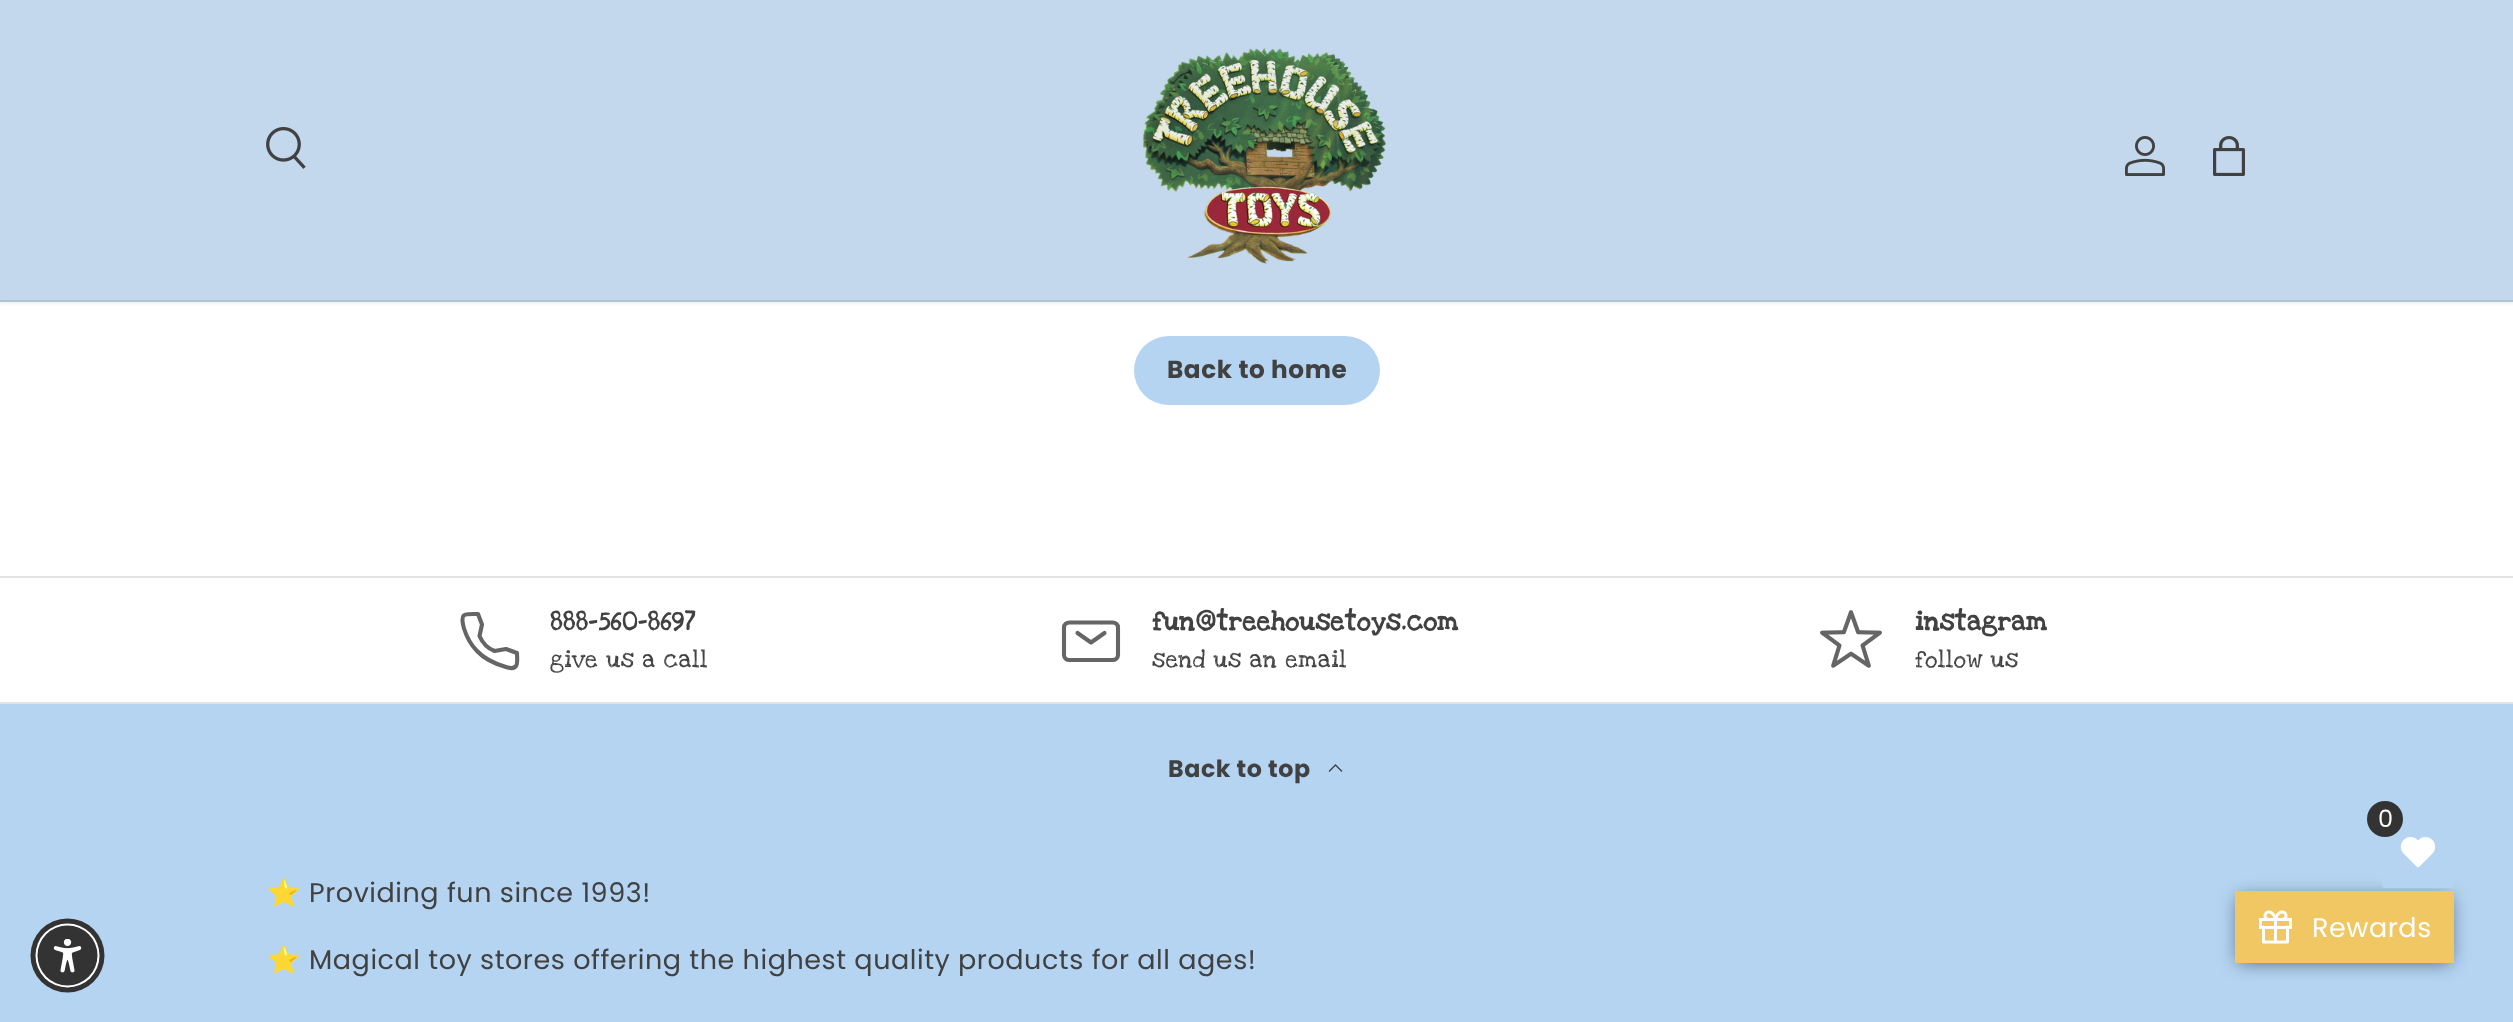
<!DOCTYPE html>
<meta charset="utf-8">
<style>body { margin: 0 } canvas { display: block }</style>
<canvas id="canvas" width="2513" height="1022"></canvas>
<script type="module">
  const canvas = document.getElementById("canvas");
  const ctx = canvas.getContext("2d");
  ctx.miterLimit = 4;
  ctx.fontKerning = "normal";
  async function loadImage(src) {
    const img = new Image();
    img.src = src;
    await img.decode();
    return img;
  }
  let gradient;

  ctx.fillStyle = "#ffffff";
  ctx.fillRect(0, 0, 2513, 1022);
  ctx.fillStyle = "rgba(0, 0, 0, 0.08)";
  ctx.filter = "blur(2px)";
  ctx.beginPath();
  ctx.rect(-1, -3, 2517, 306);
  ctx.fill();
  ctx.filter = "none";
  ctx.fillStyle = "#c3d8ec";
  ctx.fillRect(0, 0, 2513, 300);
  ctx.drawImage(await loadImage("img1.png"), 266, 127, 40, 42);
  ctx.drawImage(await loadImage("img2.png"), 1143, 48, 243, 216);
  ctx.drawImage(await loadImage("img3.png"), 2125, 136, 40, 40);
  ctx.drawImage(await loadImage("img4.png"), 2213, 136, 32, 40);
  ctx.fillStyle = "#b0c1d2";
  ctx.fillRect(0, 300, 2513, 2);
  gradient = ctx.createLinearGradient(655, 282, 1367, 459);
  gradient.addColorStop(0.6, "#aec6dc");
  gradient.addColorStop(0.6, "#b4d4f2");
  gradient.addColorStop(1, "#b4d4f2");
  ctx.fillStyle = gradient;
  ctx.beginPath();
  ctx.roundRect(1134, 336, 246, 69, 34.5);
  ctx.fill();
  ctx.letterSpacing = "0.55px";
  ctx.font = "bold 24.75px Poppins";
  ctx.fillStyle = "#414141";
  ctx.fillText("Back to home", 1167, 378);
  ctx.fillStyle = "#e3e3e3";
  ctx.fillRect(0, 576, 2513, 2);
  ctx.fillRect(0, 702, 2513, 2);
  ctx.beginPath();
  ctx.moveTo(506, 649);
  ctx.lineTo(494.5, 651);
  ctx.bezierCurveTo(488, 648.5, 482.5, 643, 479.5, 636);
  ctx.lineTo(482, 624.5);
  ctx.lineTo(478, 614);
  ctx.bezierCurveTo(464.5, 614, 459.5, 612, 464, 628.5);
  ctx.bezierCurveTo(466.5, 636.5, 471, 645, 477, 651);
  ctx.bezierCurveTo(484.5, 659, 495.5, 664, 506, 667);
  ctx.bezierCurveTo(509.5, 668, 513.5, 669.5, 516, 666);
  ctx.bezierCurveTo(518, 663.5, 517, 656.5, 517, 653);
  ctx.closePath();
  ctx.strokeStyle = "#666565";
  ctx.lineWidth = 4.1;
  ctx.lineCap = "round";
  ctx.lineJoin = "round";
  ctx.stroke();
  ctx.font = "bold 27px Love Ya Like A Sister";
  ctx.fillStyle = "#414141";
  ctx.fillText("888-560-8697", 550, 630);
  ctx.font = "24.25px Love Ya Like A Sister";
  ctx.fillText("give us a call", 550, 667);
  ctx.beginPath();
  ctx.moveTo(1077.5, 633);
  ctx.lineTo(1091, 642.5);
  ctx.lineTo(1104.5, 633);
  ctx.stroke();
  ctx.beginPath();
  ctx.moveTo(1064, 655);
  ctx.lineTo(1064, 627.5);
  ctx.bezierCurveTo(1064, 624.5, 1066.5, 622.5, 1069.5, 622.5);
  ctx.lineTo(1112.5, 622.5);
  ctx.bezierCurveTo(1115.5, 622.5, 1118, 624.5, 1118, 627.5);
  ctx.lineTo(1118, 655);
  ctx.bezierCurveTo(1118, 658, 1115.5, 660, 1112.5, 660);
  ctx.lineTo(1069.5, 660);
  ctx.bezierCurveTo(1066.5, 660, 1064, 658, 1064, 655);
  ctx.closePath();
  ctx.lineCap = "butt";
  ctx.lineJoin = "miter";
  ctx.stroke();
  ctx.font = "bold 27px Love Ya Like A Sister";
  ctx.fillText("fun@treehousetoys.com", 1152, 630);
  ctx.font = "24.25px Love Ya Like A Sister";
  ctx.fillText("send us an email", 1152, 667);
  ctx.drawImage(await loadImage("img5.png"), 1820, 610, 62, 58);
  ctx.font = "bold 27px Love Ya Like A Sister";
  ctx.fillText("instagram", 1915, 630);
  ctx.font = "24.25px Love Ya Like A Sister";
  ctx.fillText("follow us", 1915, 667);
  ctx.fillStyle = "#b4d4f2";
  ctx.fillRect(0, 704, 2513, 318);
  ctx.font = "bold 23.75px Poppins";
  ctx.fillStyle = "#414141";
  ctx.fillText("Back to top", 1168, 777);
  ctx.beginPath();
  ctx.moveTo(1329, 771.5);
  ctx.lineTo(1335.5, 765);
  ctx.lineTo(1342, 771.5);
  ctx.strokeStyle = "#414141";
  ctx.lineWidth = 1.3;
  ctx.stroke();
  ctx.font = "27px Noto Color Emoji";
  ctx.fillText("⭐️", 267, 902);
  ctx.font = "27px Poppins";
  ctx.fillText("Providing fun since 1993!", 309, 902);
  ctx.font = "27px Noto Color Emoji";
  ctx.fillText("⭐️", 267, 969);
  ctx.font = "27px Poppins";
  ctx.fillText("Magical toy stores offering the highest quality products for all ages!", 309, 969);
  ctx.fillStyle = "rgba(0, 0, 0, 0.5)";
  ctx.filter = "blur(9px)";
  ctx.beginPath();
  ctx.rect(2238, 897, 213, 66);
  ctx.fill();
  ctx.filter = "none";
  ctx.fillStyle = "#b4d4f2";
  ctx.beginPath();
  ctx.roundRect(2382, 816, 72, 72, 3);
  ctx.fill();
  ctx.fillStyle = "#333333";
  ctx.beginPath();
  ctx.arc(2385, 819, 18, 0, Math.PI * 2);
  ctx.fill();
  ctx.font = "24px Poppins";
  ctx.fillStyle = "#ffffff";
  ctx.fillText("0", 2378, 827);
  ctx.drawImage(await loadImage("img6.png"), 2400, 837, 36, 31);
  ctx.fillStyle = "#333333";
  ctx.beginPath();
  ctx.arc(67.5, 955.5, 37, 0, Math.PI * 2);
  ctx.fill();
  ctx.fillStyle = "#ffffff";
  ctx.beginPath();
  ctx.arc(67.5, 955.5, 32, 0, Math.PI * 2);
  ctx.fill();
  ctx.fillStyle = "#333333";
  ctx.beginPath();
  ctx.arc(67.5, 955.5, 30, 0, Math.PI * 2);
  ctx.fill();
  ctx.drawImage(await loadImage("img7.png"), 53, 939, 29, 34);
  ctx.fillStyle = "#f0c763";
  ctx.fillRect(2235, 891, 219, 72);
  ctx.drawImage(await loadImage("img8.png"), 2259, 910, 33, 34);
  ctx.font = "27px Poppins";
  ctx.fillStyle = "#ffffff";
  ctx.fillText("Rewards", 2312, 937);
</script>
